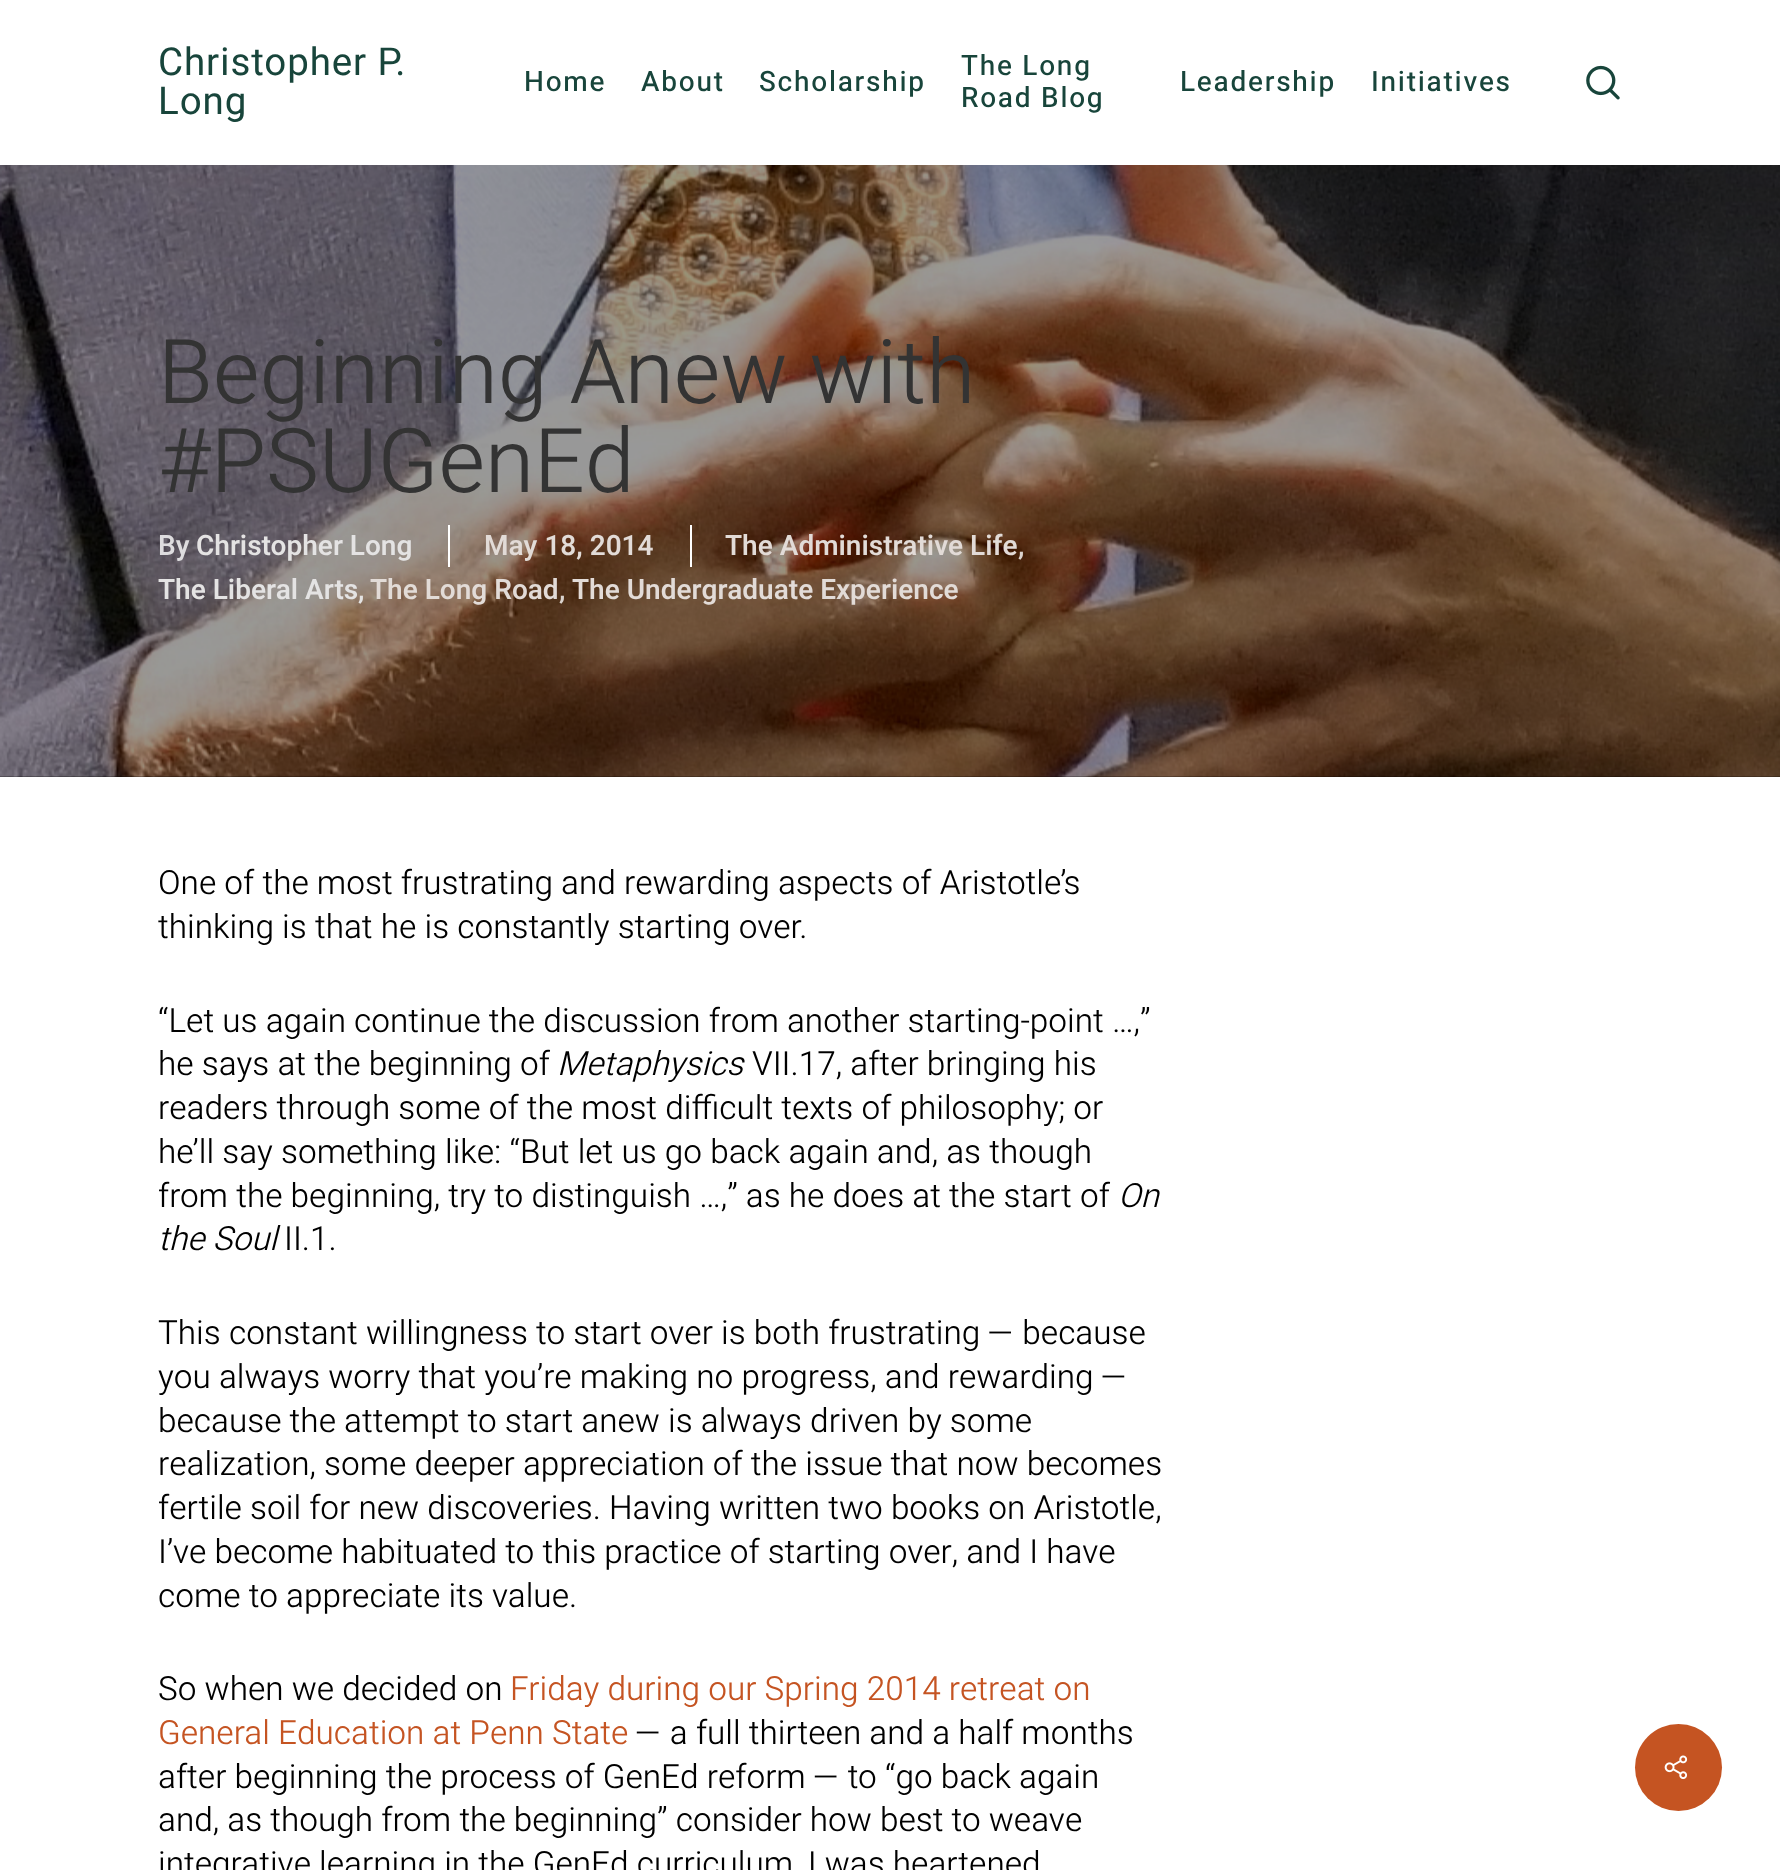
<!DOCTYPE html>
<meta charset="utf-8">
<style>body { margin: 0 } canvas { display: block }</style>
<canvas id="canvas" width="1780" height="1870"></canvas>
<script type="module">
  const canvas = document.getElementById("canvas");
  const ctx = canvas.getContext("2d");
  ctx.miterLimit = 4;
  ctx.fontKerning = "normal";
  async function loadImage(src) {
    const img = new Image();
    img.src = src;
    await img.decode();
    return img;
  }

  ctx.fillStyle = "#ffffff";
  ctx.fillRect(0, 0, 1780, 1870);
  ctx.letterSpacing = "0.9px";
  ctx.font = "38.5px Heebo";
  ctx.fillStyle = "#18453b";
  ctx.fillText("Christopher P.", 158, 75);
  ctx.fillText("Long", 158, 114);
  ctx.letterSpacing = "1.75px";
  ctx.font = "500 28px Heebo";
  ctx.fillText("Home", 524, 91);
  ctx.fillText("About", 641, 91);
  ctx.fillText("Scholarship", 759, 91);
  ctx.fillText("The Long", 961, 75);
  ctx.fillText("Road Blog", 961, 107);
  ctx.fillText("Leadership", 1180, 91);
  ctx.fillText("Initiatives", 1371, 91);
  ctx.drawImage(await loadImage("img1.png"), 1586, 65, 34, 35);
  ctx.fillStyle = "#000000";
  ctx.fillRect(0, 165, 1780, 612);
  ctx.drawImage(await loadImage("img2.png"), 0, 165, 1780, 612);
  ctx.letterSpacing = "0px";
  ctx.font = "300 89.25px Heebo";
  ctx.fillStyle = "#333333";
  ctx.fillText("Beginning Anew with", 158, 403);
  ctx.fillText("#PSUGenEd", 158, 492);
  ctx.font = "600 28px Heebo";
  ctx.fillStyle = "#dedddf";
  ctx.fillText("By", 158, 555);
  ctx.fillStyle = "#e4e3e3";
  ctx.fillText("Christopher Long", 196, 555);
  ctx.fillStyle = "#e2dbd7";
  ctx.fillText("May 18, 2014", 484, 555);
  ctx.fillStyle = "#ffffff";
  ctx.fillRect(448, 525, 2, 42);
  ctx.fillStyle = "#e2dbd7";
  ctx.fillText("The Administrative Life", 725, 555);
  ctx.fillStyle = "#ffffff";
  ctx.fillRect(690, 525, 2, 42);
  ctx.fillStyle = "#dad3ce";
  ctx.fillText(",", 1018, 555);
  ctx.fillStyle = "#e4e3e3";
  ctx.fillText("The Liberal Arts", 158, 599);
  ctx.fillText(",", 358, 599);
  ctx.fillStyle = "#e2dbd7";
  ctx.fillText("The Long Road", 370, 599);
  ctx.fillStyle = "#dad3ce";
  ctx.fillText(",", 559, 599);
  ctx.fillStyle = "#e2dbd7";
  ctx.fillText("The Undergraduate Experience", 572, 599);
  ctx.font = "300 33.25px Heebo";
  ctx.fillStyle = "#000000";
  ctx.fillText("One of the most frustrating and rewarding aspects of Aristotle’s", 158, 894);
  ctx.fillText("thinking is that he is constantly starting over.", 158, 938);
  ctx.fillText("“Let us again continue the discussion from another starting-point …,”", 158, 1032);
  ctx.fillText("he says at the beginning of", 158, 1075);
  ctx.font = "italic 300 33.25px Heebo";
  ctx.fillText("Metaphysics", 557, 1075);
  ctx.font = "300 33.25px Heebo";
  ctx.fillText("VII.17, after bringing his", 752, 1075);
  ctx.fillText("readers through some of the most difficult texts of philosophy; or", 158, 1119);
  ctx.fillText("he’ll say something like: “But let us go back again and, as though", 158, 1163);
  ctx.fillText("from the beginning, try to distinguish …,” as he does at the start of", 158, 1207);
  ctx.font = "italic 300 33.25px Heebo";
  ctx.fillText("On", 1118, 1207);
  ctx.fillText("the Soul", 158, 1250);
  ctx.font = "300 33.25px Heebo";
  ctx.fillText("II.1.", 284, 1250);
  ctx.fillText("This constant willingness to start over is both frustrating — because", 158, 1344);
  ctx.fillText("you always worry that you’re making no progress, and rewarding —", 158, 1388);
  ctx.fillText("because the attempt to start anew is always driven by some", 158, 1432);
  ctx.fillText("realization, some deeper appreciation of the issue that now becomes", 158, 1475);
  ctx.fillText("fertile soil for new discoveries. Having written two books on Aristotle,", 158, 1519);
  ctx.fillText("I’ve become habituated to this practice of starting over, and I have", 158, 1563);
  ctx.fillText("come to appreciate its value.", 158, 1607);
  ctx.fillText("So when we decided on", 158, 1700);
  ctx.fillStyle = "#c55422";
  ctx.fillText("Friday during our Spring 2014 retreat on", 510, 1700);
  ctx.fillText("General Education at Penn State", 158, 1744);
  ctx.fillStyle = "#000000";
  ctx.fillText("— a full thirteen and a half months", 636, 1744);
  ctx.fillText("after beginning the process of GenEd reform — to “go back again", 158, 1788);
  ctx.fillText("and, as though from the beginning” consider how best to weave", 158, 1831);
  ctx.fillText("integrative learning in the GenEd curriculum, I was heartened", 158, 1875);
  ctx.fillStyle = "#c55422";
  ctx.beginPath();
  ctx.arc(1678.5, 1767.5, 43.5, 0, Math.PI * 2);
  ctx.fill();
  ctx.drawImage(await loadImage("img3.png"), 1664, 1755, 24, 25);
</script>
